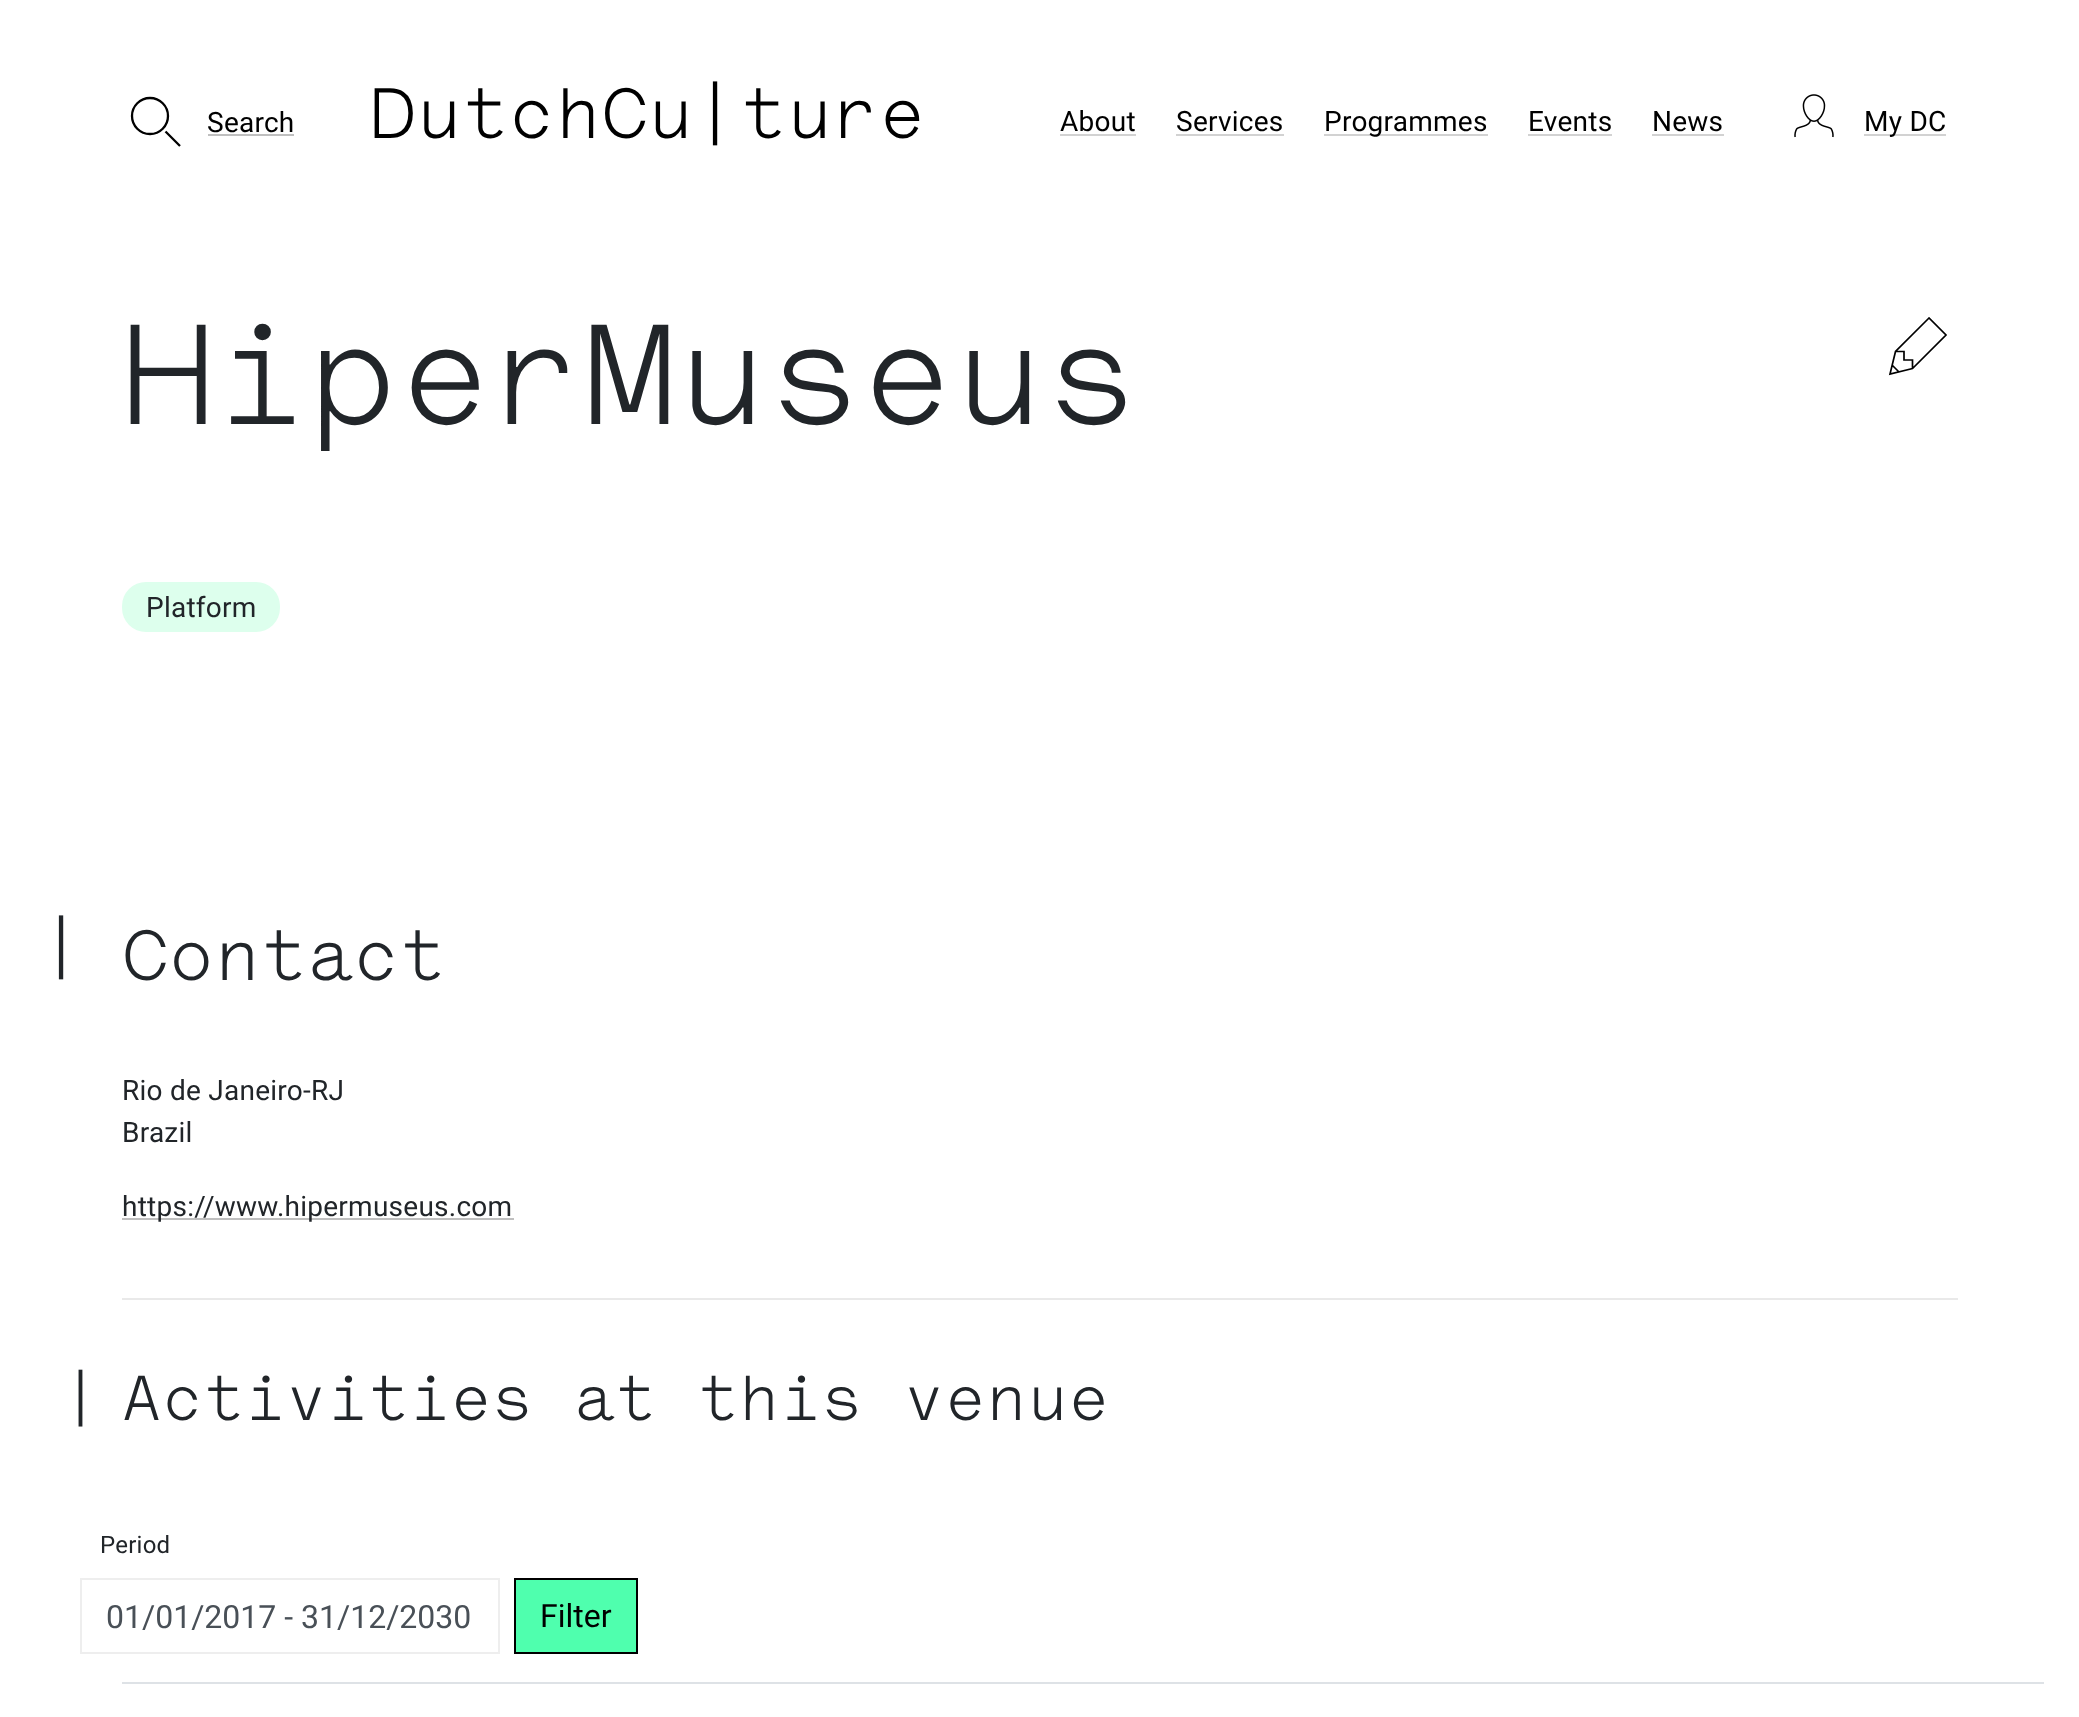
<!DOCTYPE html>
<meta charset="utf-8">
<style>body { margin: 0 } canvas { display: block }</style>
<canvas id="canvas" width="2079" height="1717"></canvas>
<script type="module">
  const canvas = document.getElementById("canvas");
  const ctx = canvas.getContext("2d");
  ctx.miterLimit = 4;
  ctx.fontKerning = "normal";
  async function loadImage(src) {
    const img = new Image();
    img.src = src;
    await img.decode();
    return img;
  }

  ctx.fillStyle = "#ffffff";
  ctx.fillRect(0, 0, 2079, 1717);
  ctx.letterSpacing = "0.25px";
  ctx.font = "28px Roboto";
  ctx.fillStyle = "#000000";
  ctx.fillText("Search", 207, 132);
  ctx.beginPath();
  ctx.arc(150, 116, 18, 0, Math.PI * 2);
  ctx.strokeStyle = "#000000";
  ctx.lineWidth = 2.3;
  ctx.stroke();
  ctx.beginPath();
  ctx.moveTo(165.5, 131.5);
  ctx.lineTo(180, 146);
  ctx.stroke();
  ctx.fillStyle = "#bfbfbf";
  ctx.fillRect(208, 134, 86, 2);
  ctx.font = "72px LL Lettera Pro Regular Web";
  ctx.fillStyle = "#000000";
  ctx.fillText("DutchCu ture", 370, 138);
  ctx.fillText("|", 692, 138);
  ctx.font = "28px Roboto";
  ctx.fillText("About", 1060, 131);
  ctx.fillStyle = "#d2d2d2";
  ctx.fillRect(1060, 134, 76, 2);
  ctx.fillStyle = "#000000";
  ctx.fillText("Services", 1176, 131);
  ctx.fillStyle = "#d2d2d2";
  ctx.fillRect(1176, 134, 108, 2);
  ctx.fillRect(1324, 134, 164, 2);
  ctx.fillStyle = "#000000";
  ctx.fillText("Programmes", 1324, 131);
  ctx.fillText("Events", 1528, 131);
  ctx.fillStyle = "#d2d2d2";
  ctx.fillRect(1528, 134, 84, 2);
  ctx.fillStyle = "#000000";
  ctx.fillText("News", 1652, 131);
  ctx.fillStyle = "#d2d2d2";
  ctx.fillRect(1652, 134, 72, 2);
  ctx.drawImage(await loadImage("img1.png"), 1794, 94, 40, 44);
  ctx.fillRect(1864, 134, 82, 2);
  ctx.fillStyle = "#000000";
  ctx.fillText("My DC", 1864, 131);
  ctx.font = "144px LL Lettera Pro Regular Web";
  ctx.fillStyle = "#212529";
  ctx.fillText("HiperMuseus", 122, 424);
  ctx.beginPath();
  ctx.moveTo(1929, 318);
  ctx.lineTo(1895.5, 351.5);
  ctx.lineTo(1890, 374);
  ctx.lineTo(1912.5, 368.5);
  ctx.lineTo(1946, 335);
  ctx.closePath();
  ctx.moveTo(1895.5, 351.5);
  ctx.lineTo(1904, 351.5);
  ctx.lineTo(1904, 360);
  ctx.lineTo(1912.5, 360);
  ctx.lineTo(1912.5, 368.5);
  ctx.moveTo(1892, 365);
  ctx.lineTo(1899, 372);
  ctx.lineWidth = 1.7;
  ctx.stroke();
  ctx.fillStyle = "#ddffed";
  ctx.beginPath();
  ctx.roundRect(122, 582, 158, 50, 24);
  ctx.fill();
  ctx.font = "28px Roboto";
  ctx.fillStyle = "#212529";
  ctx.fillText("Platform", 146, 617);
  ctx.font = "72px LL Lettera Pro Regular Web";
  ctx.fillText("|", 38, 972);
  ctx.fillText("Contact", 122, 980);
  ctx.font = "28px Roboto";
  ctx.fillText("Rio de Janeiro-RJ", 122, 1100);
  ctx.fillText("Brazil", 122, 1142);
  ctx.fillStyle = "#bfbfbf";
  ctx.fillRect(122, 1218, 392, 2);
  ctx.fillStyle = "#212529";
  ctx.fillText("https://www.hipermuseus.com", 122, 1216);
  ctx.fillStyle = "#e9e9e9";
  ctx.fillRect(122, 1298, 1836, 2);
  ctx.font = "64px LL Lettera Pro Regular Web";
  ctx.fillStyle = "#212529";
  ctx.fillText("|", 60, 1420);
  ctx.fillText("Activities at this venue", 121, 1420);
  ctx.font = "24px Roboto";
  ctx.fillText("Period", 100, 1553);
  ctx.strokeStyle = "#eeeeee";
  ctx.lineWidth = 2;
  ctx.strokeRect(81, 1579, 418, 74);
  ctx.letterSpacing = "0px";
  ctx.font = "32px Roboto";
  ctx.fillStyle = "#495057";
  ctx.fillText("01/01/2017 - 31/12/2030", 106, 1628);
  ctx.fillStyle = "#4fffae";
  ctx.beginPath();
  ctx.rect(515, 1579, 122, 74);
  ctx.fill();
  ctx.strokeStyle = "#000000";
  ctx.stroke();
  ctx.fillStyle = "#000000";
  ctx.fillText("Filter", 540, 1627);
  ctx.fillStyle = "#dee2e6";
  ctx.fillRect(122, 1682, 1922, 2);
</script>
